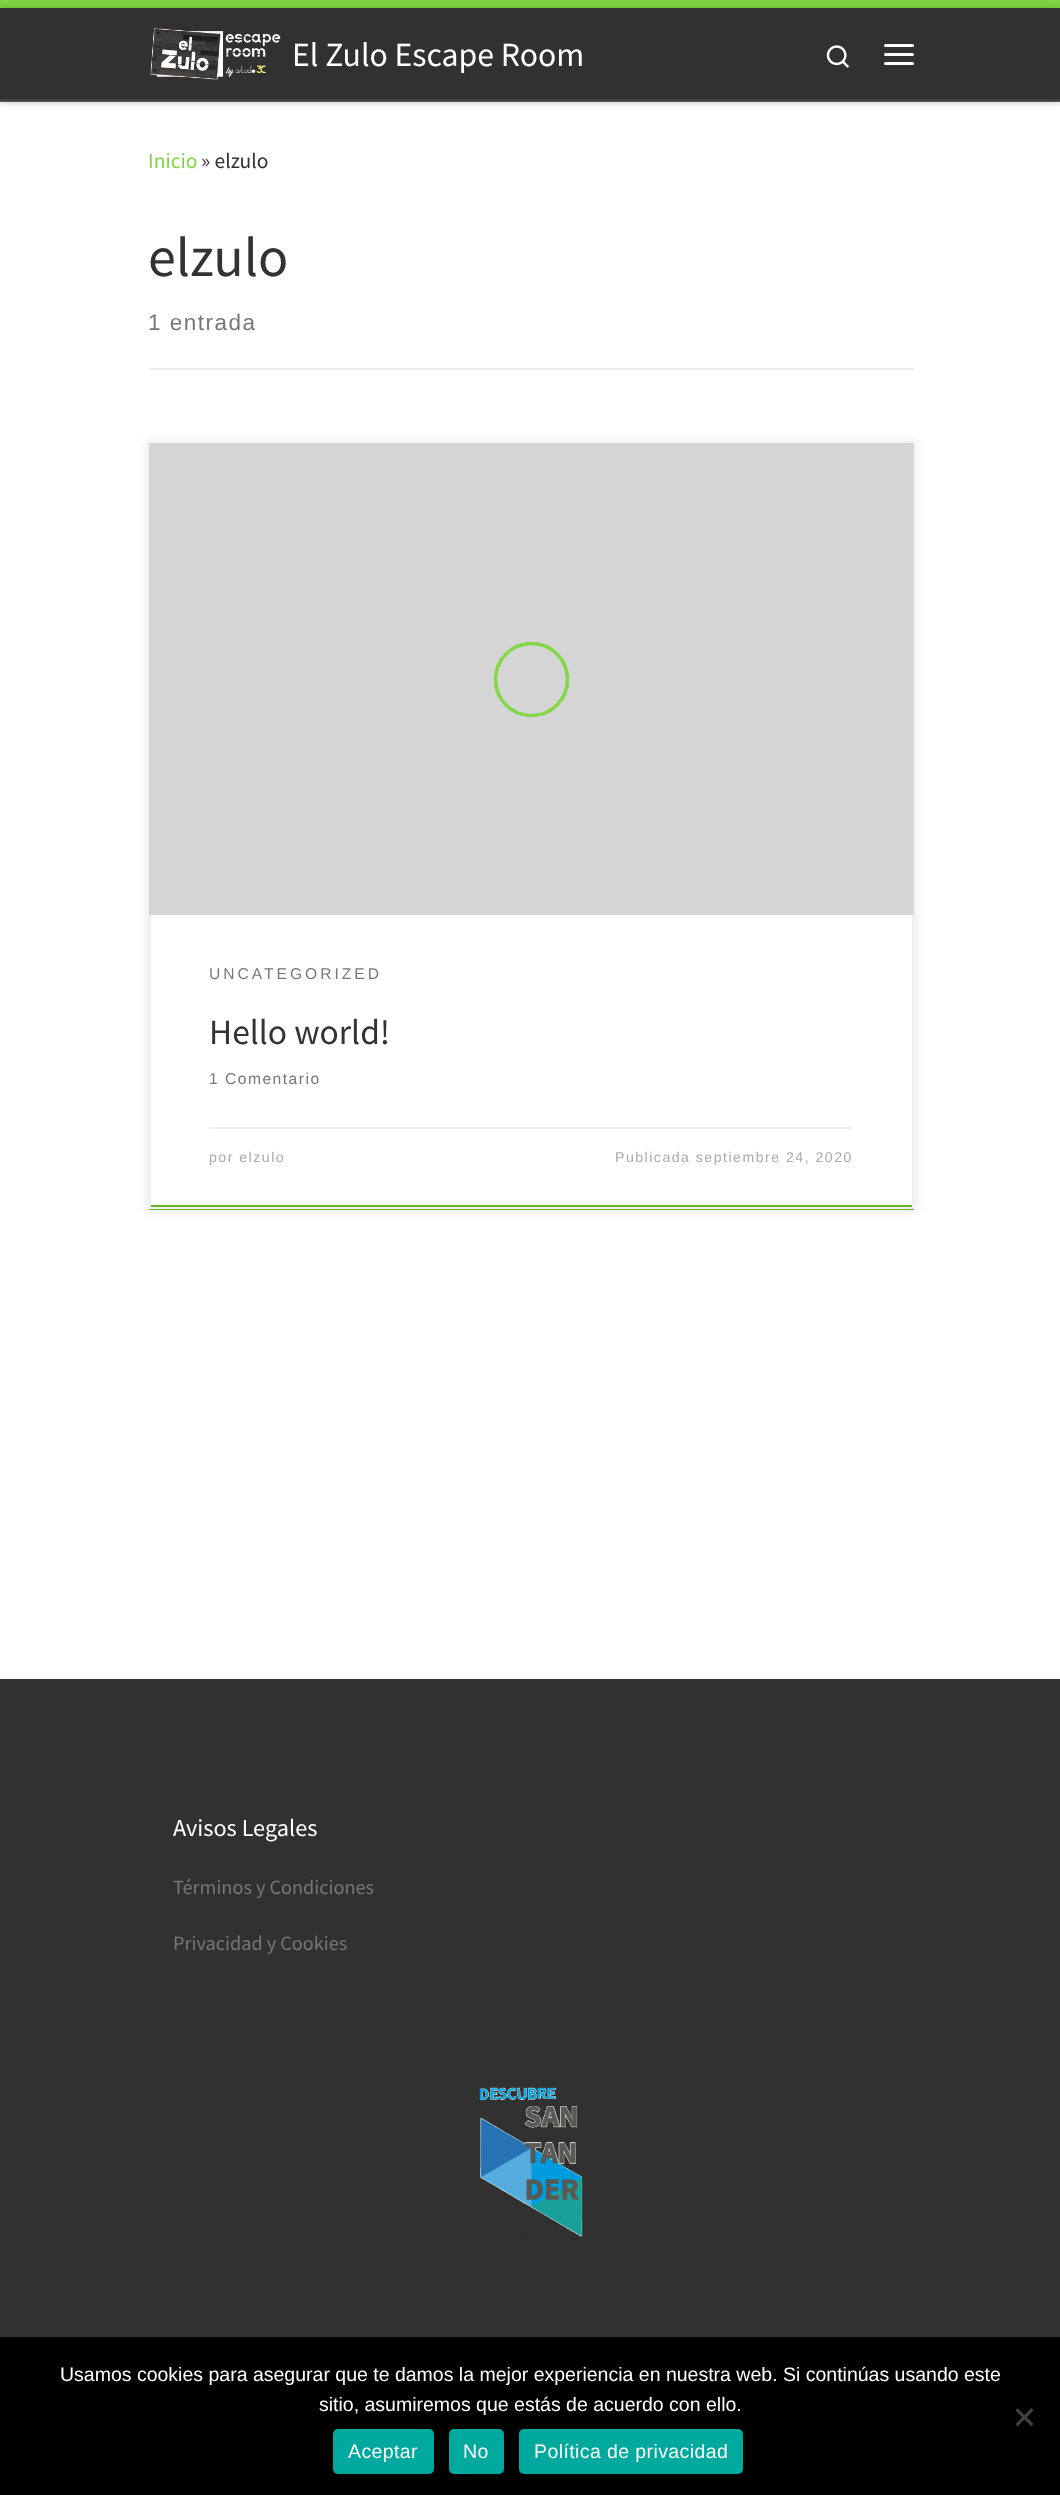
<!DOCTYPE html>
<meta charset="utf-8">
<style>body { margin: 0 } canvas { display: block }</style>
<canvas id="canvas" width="1060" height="2495"></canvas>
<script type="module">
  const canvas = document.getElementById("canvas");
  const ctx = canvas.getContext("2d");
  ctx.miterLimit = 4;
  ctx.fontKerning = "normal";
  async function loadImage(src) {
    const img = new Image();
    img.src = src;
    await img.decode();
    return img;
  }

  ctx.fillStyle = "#ffffff";
  ctx.fillRect(0, 0, 1060, 2495);
  ctx.fillStyle = "rgba(102, 102, 102, 0.08)";
  ctx.filter = "blur(1.5px)";
  ctx.beginPath();
  ctx.rect(0, 3, 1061, 102);
  ctx.fill();
  ctx.filter = "none";
  ctx.fillStyle = "#313131";
  ctx.fillRect(0, 101, 1060, 1);
  ctx.fillStyle = "#81d742";
  ctx.fillRect(0, 0, 1060, 8);
  ctx.fillStyle = "rgba(255, 255, 255, 0.09)";
  ctx.fillRect(0, 101, 1060, 1);
  ctx.fillStyle = "rgba(255, 255, 255, 0.15)";
  ctx.beginPath();
  ctx.moveTo(0, 100);
  ctx.lineTo(0, 102);
  ctx.lineTo(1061, 102);
  ctx.lineTo(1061, 9);
  ctx.lineTo(1060, 9);
  ctx.lineTo(1060, 100);
  ctx.closePath();
  ctx.fill();
  ctx.fillStyle = "rgba(0, 0, 0, 0.2)";
  ctx.filter = "blur(4px)";
  ctx.beginPath();
  ctx.rect(0, 8, 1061, 93);
  ctx.fill();
  ctx.filter = "none";
  ctx.fillStyle = "#313131";
  ctx.fillRect(0, 8, 1060, 91);
  ctx.drawImage(await loadImage("img1.png"), 150, 28, 131, 52);
  ctx.font = "33.75px Source Sans Pro";
  ctx.fillStyle = "#ffffff";
  ctx.fillText("El Zulo Escape Room", 292, 66);
  ctx.drawImage(await loadImage("img2.png"), 826, 45, 24, 23);
  ctx.beginPath();
  ctx.roundRect(884, 44, 30, 3, 1.5);
  ctx.fill();
  ctx.beginPath();
  ctx.roundRect(884, 53, 30, 3, 1.5);
  ctx.fill();
  ctx.beginPath();
  ctx.roundRect(884, 62, 30, 3, 1.5);
  ctx.fill();
  ctx.fillStyle = "#404040";
  ctx.fillRect(0, 99, 1060, 2);
  ctx.font = "21.5px Source Sans Pro";
  ctx.fillStyle = "#81d742";
  ctx.fillText("Inicio", 148, 168);
  ctx.fillStyle = "#333333";
  ctx.fillText("» elzulo", 201, 168);
  ctx.font = "56px Source Sans Pro";
  ctx.fillText("elzulo", 148, 276);
  ctx.letterSpacing = "1.5px";
  ctx.font = "22.5px Liberation Sans";
  ctx.fillStyle = "#777777";
  ctx.fillText("1 entrada", 148, 330);
  ctx.fillStyle = "#eceeef";
  ctx.fillRect(149, 368, 765, 2);
  ctx.fillStyle = "rgba(0, 0, 0, 0.07)";
  ctx.filter = "blur(4.5px)";
  ctx.beginPath();
  ctx.rect(146, 440, 771, 772);
  ctx.fill();
  ctx.filter = "none";
  ctx.fillStyle = "#ffffff";
  ctx.fillRect(151, 915, 761, 290);
  ctx.fillStyle = "#63b526";
  ctx.fillRect(149, 1205, 765, 5);
  ctx.strokeStyle = "#efefef";
  ctx.lineWidth = 2;
  ctx.strokeRect(150, 444, 763, 764);
  ctx.fillStyle = "#d5d5d5";
  ctx.fillRect(149, 443, 765, 472);
  ctx.beginPath();
  ctx.arc(531.5, 679.5, 36, 0, Math.PI * 2);
  ctx.strokeStyle = "#84d747";
  ctx.lineWidth = 3;
  ctx.stroke();
  ctx.beginPath();
  ctx.arc(531.5, 679.5, 36, 0, Math.PI * 2);
  ctx.stroke();
  ctx.beginPath();
  ctx.arc(531.5, 679.5, 36, 0, Math.PI * 2);
  ctx.stroke();
  ctx.letterSpacing = "3px";
  ctx.font = "15.6px Liberation Sans";
  ctx.fillStyle = "#777777";
  ctx.fillText("UNCATEGORIZED", 209, 979);
  ctx.letterSpacing = "0px";
  ctx.font = "35.5px Source Sans Pro";
  ctx.fillStyle = "#333333";
  ctx.fillText("Hello world!", 209, 1044);
  ctx.letterSpacing = "1.5px";
  ctx.font = "15.6px Liberation Sans";
  ctx.fillStyle = "#777777";
  ctx.fillText("1 Comentario", 209, 1084);
  ctx.fillStyle = "#eceeef";
  ctx.fillRect(209, 1127, 643, 2);
  ctx.font = "14.1px Liberation Sans";
  ctx.fillStyle = "#aaaaaa";
  ctx.fillText("por elzulo", 209, 1162);
  ctx.fillText("Publicada septiembre 24, 2020", 615, 1162);
  ctx.fillStyle = "#313131";
  ctx.fillRect(0, 1679, 1060, 658);
  ctx.letterSpacing = "0px";
  ctx.font = "24.25px Source Sans Pro";
  ctx.fillStyle = "#ffffff";
  ctx.fillText("Avisos Legales", 173, 1836);
  ctx.font = "20.25px Source Sans Pro";
  ctx.fillStyle = "#777777";
  ctx.fillText("Términos y Condiciones", 173, 1894);
  ctx.fillText("Privacidad y Cookies", 173, 1950);
  ctx.drawImage(await loadImage("img3.png"), 479, 2087, 104, 150);
  ctx.fillStyle = "#000000";
  ctx.fillRect(0, 2337, 1060, 158);
  ctx.font = "19.5px Liberation Sans";
  ctx.fillStyle = "#ffffff";
  ctx.fillText("Usamos cookies para asegurar que te damos la mejor experiencia en nuestra web. Si continúas usando este", 60, 2381);
  ctx.fillText("sitio, asumiremos que estás de acuerdo con ello.", 319, 2411);
  ctx.fillStyle = "#404040";
  ctx.beginPath();
  ctx.moveTo(1031.5, 2408);
  ctx.lineTo(1033.5, 2410.5);
  ctx.lineTo(1017.5, 2426.5);
  ctx.lineTo(1015.5, 2424);
  ctx.closePath();
  ctx.fill();
  ctx.beginPath();
  ctx.moveTo(1015.5, 2410.5);
  ctx.lineTo(1017.5, 2408);
  ctx.lineTo(1033.5, 2424);
  ctx.lineTo(1031.5, 2426.5);
  ctx.closePath();
  ctx.fill();
  ctx.fillStyle = "#00a99d";
  ctx.beginPath();
  ctx.roundRect(333, 2429, 101, 45, 5);
  ctx.fill();
  ctx.letterSpacing = "0.4px";
  ctx.fillStyle = "#ffffff";
  ctx.fillText("Aceptar", 348, 2458);
  ctx.fillStyle = "#00a99d";
  ctx.beginPath();
  ctx.roundRect(449, 2429, 55, 45, 5);
  ctx.fill();
  ctx.fillStyle = "#ffffff";
  ctx.fillText("No", 463, 2458);
  ctx.fillStyle = "#00a99d";
  ctx.beginPath();
  ctx.roundRect(519, 2429, 224, 45, 5);
  ctx.fill();
  ctx.fillStyle = "#ffffff";
  ctx.fillText("Política de privacidad", 534, 2458);
</script>
